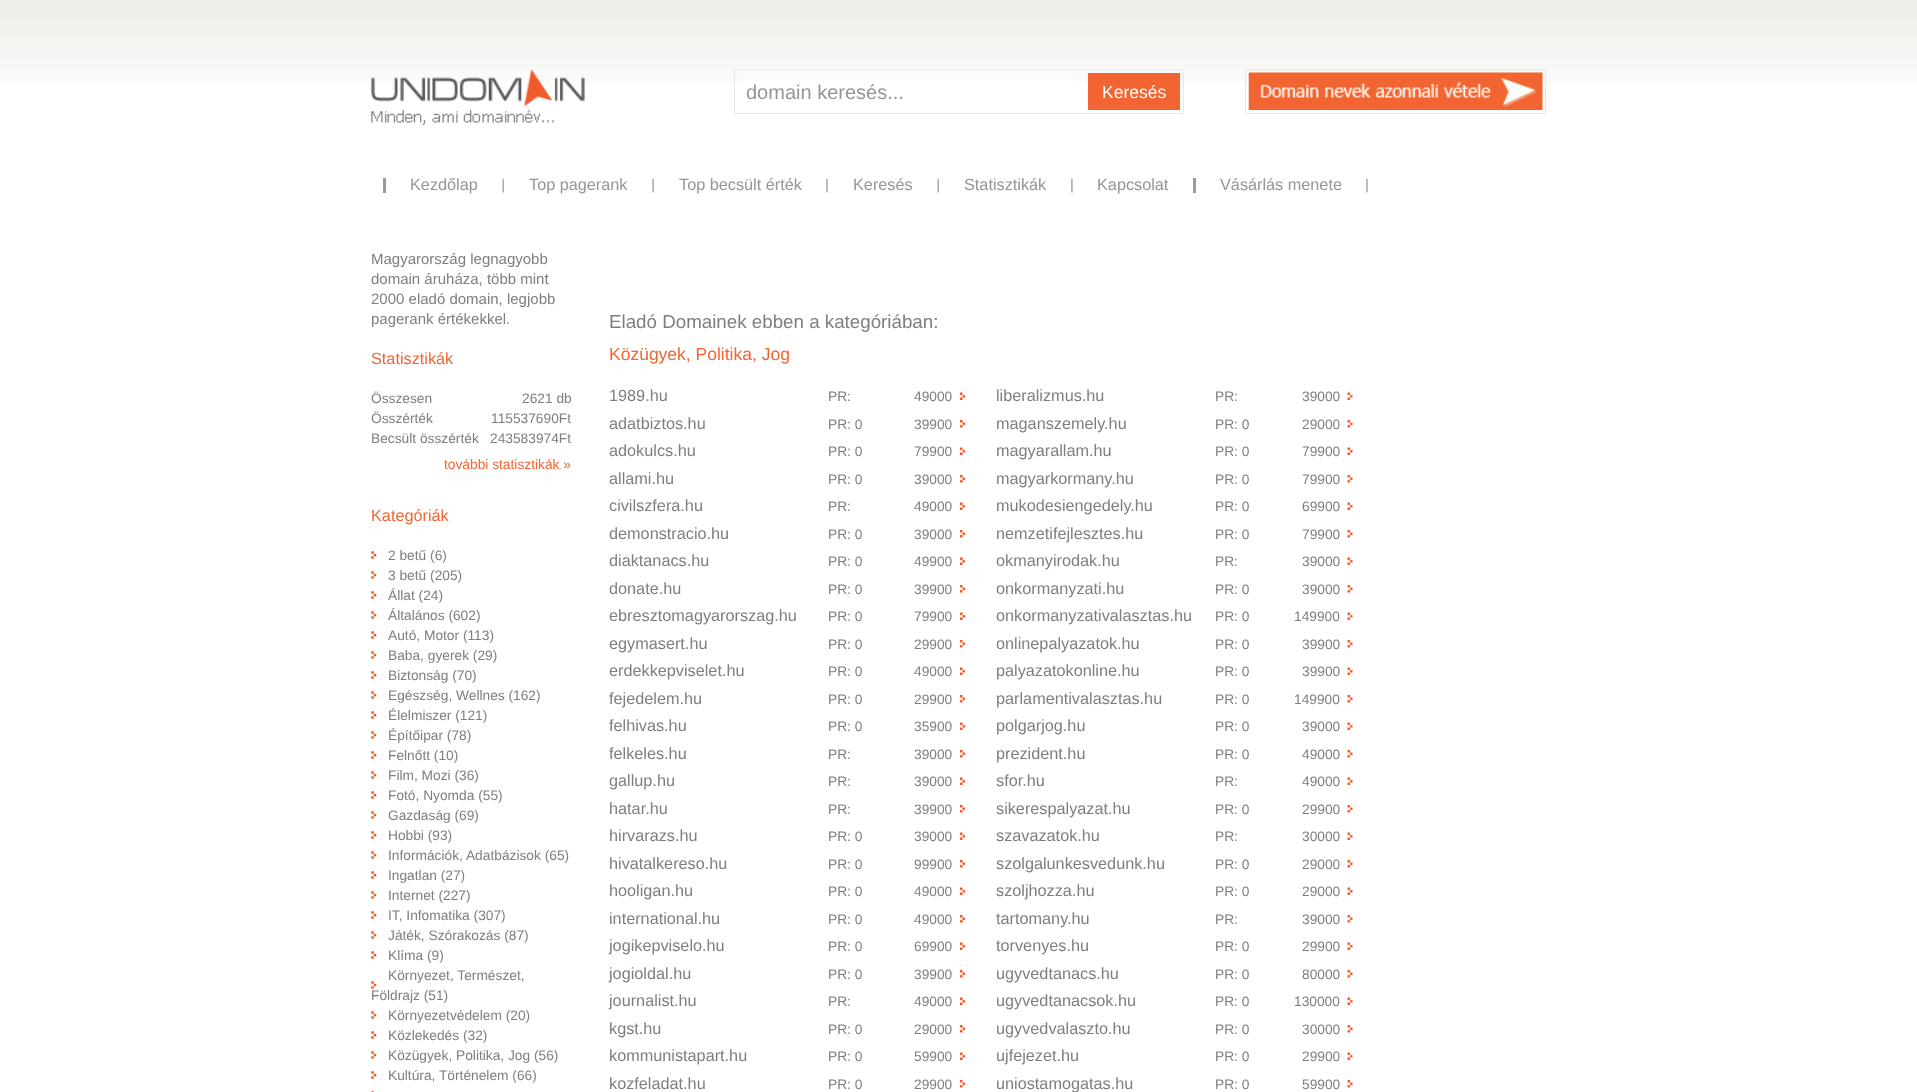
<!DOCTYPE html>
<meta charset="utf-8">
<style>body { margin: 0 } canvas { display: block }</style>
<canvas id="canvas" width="1917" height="1092"></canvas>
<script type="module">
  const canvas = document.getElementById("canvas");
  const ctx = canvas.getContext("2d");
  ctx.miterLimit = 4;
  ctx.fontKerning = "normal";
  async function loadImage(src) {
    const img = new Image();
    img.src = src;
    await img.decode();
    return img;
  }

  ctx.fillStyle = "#ffffff";
  ctx.fillRect(0, 0, 1917, 1092);
  ctx.drawImage(await loadImage("img1.png"), 0, 0, 1917, 84);
  ctx.drawImage(await loadImage("img2.png"), 371, 69, 214, 56);
  ctx.strokeStyle = "#e8e8e8";
  ctx.strokeRect(734.5, 69.5, 449, 44);
  ctx.fillRect(744, 79, 330, 5);
  ctx.font = "20px Liberation Sans";
  ctx.fillStyle = "#959595";
  ctx.fillText("domain keresés...", 746, 99);
  ctx.fillStyle = "#f26532";
  ctx.fillRect(1088, 73, 92, 37);
  ctx.font = "17.5px Liberation Sans";
  ctx.fillStyle = "#ffffff";
  ctx.fillText("Keresés", 1102, 98);
  ctx.strokeRect(1245.5, 69.5, 300, 44);
  ctx.drawImage(await loadImage("img3.png"), 1248, 72, 295, 38);
  ctx.fillStyle = "#9a9b9a";
  ctx.fillRect(383, 178, 3, 15);
  ctx.font = "16.25px Liberation Sans";
  ctx.fillStyle = "#959595";
  ctx.fillText("Kezdőlap", 410, 190);
  ctx.drawImage(await loadImage("img4.png"), 502, 178, 2, 15);
  ctx.fillText("Top pagerank", 529, 190);
  ctx.drawImage(await loadImage("img5.png"), 652, 178, 2, 15);
  ctx.fillText("Top becsült érték", 679, 190);
  ctx.drawImage(await loadImage("img6.png"), 826, 178, 2, 15);
  ctx.fillText("Keresés", 853, 190);
  ctx.drawImage(await loadImage("img4.png"), 937, 178, 2, 15);
  ctx.fillText("Statisztikák", 964, 190);
  ctx.drawImage(await loadImage("img6.png"), 1071, 178, 2, 15);
  ctx.fillText("Kapcsolat", 1097, 190);
  ctx.fillStyle = "#9a9b9a";
  ctx.fillRect(1193, 178, 3, 15);
  ctx.fillStyle = "#959595";
  ctx.fillText("Vásárlás menete", 1220, 190);
  ctx.drawImage(await loadImage("img6.png"), 1366, 178, 2, 15);
  ctx.font = "15px Liberation Sans";
  ctx.fillStyle = "#7e7e7e";
  ctx.fillText("Magyarország legnagyobb", 371, 264);
  ctx.fillText("domain áruháza, több mint", 371, 284);
  ctx.fillText("2000 eladó domain, legjobb", 371, 304);
  ctx.fillText("pagerank értékekkel.", 371, 324);
  ctx.font = "16.25px Liberation Sans";
  ctx.fillStyle = "#f26532";
  ctx.fillText("Statisztikák", 371, 364);
  ctx.font = "13.75px Liberation Sans";
  ctx.fillStyle = "#7e7e7e";
  ctx.fillText("Összesen", 371, 403);
  ctx.fillText("2621 db", 522, 403);
  ctx.fillText("Összérték", 371, 423);
  ctx.fillText("115537690Ft", 491, 423);
  ctx.fillText("Becsült összérték", 371, 443);
  ctx.fillText("243583974Ft", 490, 443);
  ctx.fillStyle = "#f26532";
  ctx.fillText("további statisztikák »", 444, 469);
  ctx.font = "16.25px Liberation Sans";
  ctx.fillText("Kategóriák", 371, 521);
  ctx.drawImage(await loadImage("img7.png"), 371, 551, 6, 8);
  ctx.font = "13.75px Liberation Sans";
  ctx.fillStyle = "#7e7e7e";
  ctx.fillText("2 betű (6)", 388, 560);
  ctx.drawImage(await loadImage("img7.png"), 371, 571, 6, 8);
  ctx.fillText("3 betű (205)", 388, 580);
  ctx.drawImage(await loadImage("img7.png"), 371, 591, 6, 8);
  ctx.fillText("Állat (24)", 388, 600);
  ctx.drawImage(await loadImage("img7.png"), 371, 611, 6, 8);
  ctx.fillText("Általános (602)", 388, 620);
  ctx.drawImage(await loadImage("img7.png"), 371, 631, 6, 8);
  ctx.fillText("Autó, Motor (113)", 388, 640);
  ctx.drawImage(await loadImage("img7.png"), 371, 651, 6, 8);
  ctx.fillText("Baba, gyerek (29)", 388, 660);
  ctx.drawImage(await loadImage("img7.png"), 371, 671, 6, 8);
  ctx.fillText("Biztonság (70)", 388, 680);
  ctx.drawImage(await loadImage("img7.png"), 371, 691, 6, 8);
  ctx.fillText("Egészség, Wellnes (162)", 388, 700);
  ctx.drawImage(await loadImage("img7.png"), 371, 711, 6, 8);
  ctx.fillText("Élelmiszer (121)", 388, 720);
  ctx.drawImage(await loadImage("img7.png"), 371, 731, 6, 8);
  ctx.fillText("Építőipar (78)", 388, 740);
  ctx.drawImage(await loadImage("img7.png"), 371, 751, 6, 8);
  ctx.fillText("Felnőtt (10)", 388, 760);
  ctx.drawImage(await loadImage("img7.png"), 371, 771, 6, 8);
  ctx.fillText("Film, Mozi (36)", 388, 780);
  ctx.drawImage(await loadImage("img7.png"), 371, 791, 6, 8);
  ctx.fillText("Fotó, Nyomda (55)", 388, 800);
  ctx.drawImage(await loadImage("img7.png"), 371, 811, 6, 8);
  ctx.fillText("Gazdaság (69)", 388, 820);
  ctx.drawImage(await loadImage("img7.png"), 371, 831, 6, 8);
  ctx.fillText("Hobbi (93)", 388, 840);
  ctx.drawImage(await loadImage("img7.png"), 371, 851, 6, 8);
  ctx.fillText("Információk, Adatbázisok (65)", 388, 860);
  ctx.drawImage(await loadImage("img7.png"), 371, 871, 6, 8);
  ctx.fillText("Ingatlan (27)", 388, 880);
  ctx.drawImage(await loadImage("img7.png"), 371, 891, 6, 8);
  ctx.fillText("Internet (227)", 388, 900);
  ctx.drawImage(await loadImage("img7.png"), 371, 911, 6, 8);
  ctx.fillText("IT, Infomatika (307)", 388, 920);
  ctx.drawImage(await loadImage("img7.png"), 371, 931, 6, 8);
  ctx.fillText("Játék, Szórakozás (87)", 388, 940);
  ctx.drawImage(await loadImage("img7.png"), 371, 951, 6, 8);
  ctx.fillText("Klíma (9)", 388, 960);
  ctx.drawImage(await loadImage("img7.png"), 371, 981, 6, 8);
  ctx.fillText("Környezet, Természet,", 388, 980);
  ctx.fillText("Földrajz (51)", 371, 1000);
  ctx.drawImage(await loadImage("img7.png"), 371, 1011, 6, 8);
  ctx.fillText("Környezetvédelem (20)", 388, 1020);
  ctx.drawImage(await loadImage("img7.png"), 371, 1031, 6, 8);
  ctx.fillText("Közlekedés (32)", 388, 1040);
  ctx.drawImage(await loadImage("img7.png"), 371, 1051, 6, 8);
  ctx.fillText("Közügyek, Politika, Jog (56)", 388, 1060);
  ctx.drawImage(await loadImage("img7.png"), 371, 1071, 6, 8);
  ctx.fillText("Kultúra, Történelem (66)", 388, 1080);
  ctx.drawImage(await loadImage("img8.png"), 371, 1091, 3, 1);
  ctx.font = "18.75px Liberation Sans";
  ctx.fillText("Eladó Domainek ebben a kategóriában:", 609, 328);
  ctx.font = "17.5px Liberation Sans";
  ctx.fillStyle = "#f26532";
  ctx.fillText("Közügyek, Politika, Jog", 609, 360);
  ctx.drawImage(await loadImage("img9.png"), 960, 392, 5, 8);
  ctx.font = "16.25px Liberation Sans";
  ctx.fillStyle = "#7e7e7e";
  ctx.fillText("1989.hu", 609, 401);
  ctx.font = "13.75px Liberation Sans";
  ctx.fillText("PR:", 828, 401);
  ctx.fillText("49000", 914, 401);
  ctx.drawImage(await loadImage("img10.png"), 960, 420, 5, 8);
  ctx.font = "16.25px Liberation Sans";
  ctx.fillText("adatbiztos.hu", 609, 429);
  ctx.font = "13.75px Liberation Sans";
  ctx.fillText("PR: 0", 828, 429);
  ctx.fillText("39900", 914, 429);
  ctx.drawImage(await loadImage("img9.png"), 960, 447, 5, 8);
  ctx.font = "16.25px Liberation Sans";
  ctx.fillText("adokulcs.hu", 609, 456);
  ctx.font = "13.75px Liberation Sans";
  ctx.fillText("PR: 0", 828, 456);
  ctx.fillText("79900", 914, 456);
  ctx.drawImage(await loadImage("img10.png"), 960, 475, 5, 8);
  ctx.font = "16.25px Liberation Sans";
  ctx.fillText("allami.hu", 609, 484);
  ctx.font = "13.75px Liberation Sans";
  ctx.fillText("PR: 0", 828, 484);
  ctx.fillText("39000", 914, 484);
  ctx.drawImage(await loadImage("img9.png"), 960, 502, 5, 8);
  ctx.font = "16.25px Liberation Sans";
  ctx.fillText("civilszfera.hu", 609, 511);
  ctx.font = "13.75px Liberation Sans";
  ctx.fillText("PR:", 828, 511);
  ctx.fillText("49000", 914, 511);
  ctx.drawImage(await loadImage("img10.png"), 960, 530, 5, 8);
  ctx.font = "16.25px Liberation Sans";
  ctx.fillText("demonstracio.hu", 609, 539);
  ctx.font = "13.75px Liberation Sans";
  ctx.fillText("PR: 0", 828, 539);
  ctx.fillText("39000", 914, 539);
  ctx.drawImage(await loadImage("img9.png"), 960, 557, 5, 8);
  ctx.font = "16.25px Liberation Sans";
  ctx.fillText("diaktanacs.hu", 609, 566);
  ctx.font = "13.75px Liberation Sans";
  ctx.fillText("PR: 0", 828, 566);
  ctx.fillText("49900", 914, 566);
  ctx.drawImage(await loadImage("img10.png"), 960, 585, 5, 8);
  ctx.font = "16.25px Liberation Sans";
  ctx.fillText("donate.hu", 609, 594);
  ctx.font = "13.75px Liberation Sans";
  ctx.fillText("PR: 0", 828, 594);
  ctx.fillText("39900", 914, 594);
  ctx.drawImage(await loadImage("img9.png"), 960, 612, 5, 8);
  ctx.font = "16.25px Liberation Sans";
  ctx.fillText("ebresztomagyarorszag.hu", 609, 621);
  ctx.font = "13.75px Liberation Sans";
  ctx.fillText("PR: 0", 828, 621);
  ctx.fillText("79900", 914, 621);
  ctx.drawImage(await loadImage("img10.png"), 960, 640, 5, 8);
  ctx.font = "16.25px Liberation Sans";
  ctx.fillText("egymasert.hu", 609, 649);
  ctx.font = "13.75px Liberation Sans";
  ctx.fillText("PR: 0", 828, 649);
  ctx.fillText("29900", 914, 649);
  ctx.drawImage(await loadImage("img9.png"), 960, 667, 5, 8);
  ctx.font = "16.25px Liberation Sans";
  ctx.fillText("erdekkepviselet.hu", 609, 676);
  ctx.font = "13.75px Liberation Sans";
  ctx.fillText("PR: 0", 828, 676);
  ctx.fillText("49000", 914, 676);
  ctx.drawImage(await loadImage("img10.png"), 960, 695, 5, 8);
  ctx.font = "16.25px Liberation Sans";
  ctx.fillText("fejedelem.hu", 609, 704);
  ctx.font = "13.75px Liberation Sans";
  ctx.fillText("PR: 0", 828, 704);
  ctx.fillText("29900", 914, 704);
  ctx.drawImage(await loadImage("img9.png"), 960, 722, 5, 8);
  ctx.font = "16.25px Liberation Sans";
  ctx.fillText("felhivas.hu", 609, 731);
  ctx.font = "13.75px Liberation Sans";
  ctx.fillText("PR: 0", 828, 731);
  ctx.fillText("35900", 914, 731);
  ctx.drawImage(await loadImage("img10.png"), 960, 750, 5, 8);
  ctx.font = "16.25px Liberation Sans";
  ctx.fillText("felkeles.hu", 609, 759);
  ctx.font = "13.75px Liberation Sans";
  ctx.fillText("PR:", 828, 759);
  ctx.fillText("39000", 914, 759);
  ctx.drawImage(await loadImage("img11.png"), 960, 777, 5, 8);
  ctx.font = "16.25px Liberation Sans";
  ctx.fillText("gallup.hu", 609, 786);
  ctx.font = "13.75px Liberation Sans";
  ctx.fillText("PR:", 828, 786);
  ctx.fillText("39000", 914, 786);
  ctx.drawImage(await loadImage("img10.png"), 960, 805, 5, 8);
  ctx.font = "16.25px Liberation Sans";
  ctx.fillText("hatar.hu", 609, 814);
  ctx.font = "13.75px Liberation Sans";
  ctx.fillText("PR:", 828, 814);
  ctx.fillText("39900", 914, 814);
  ctx.drawImage(await loadImage("img9.png"), 960, 832, 5, 8);
  ctx.font = "16.25px Liberation Sans";
  ctx.fillText("hirvarazs.hu", 609, 841);
  ctx.font = "13.75px Liberation Sans";
  ctx.fillText("PR: 0", 828, 841);
  ctx.fillText("39000", 914, 841);
  ctx.drawImage(await loadImage("img10.png"), 960, 860, 5, 8);
  ctx.font = "16.25px Liberation Sans";
  ctx.fillText("hivatalkereso.hu", 609, 869);
  ctx.font = "13.75px Liberation Sans";
  ctx.fillText("PR: 0", 828, 869);
  ctx.fillText("99900", 914, 869);
  ctx.drawImage(await loadImage("img9.png"), 960, 887, 5, 8);
  ctx.font = "16.25px Liberation Sans";
  ctx.fillText("hooligan.hu", 609, 896);
  ctx.font = "13.75px Liberation Sans";
  ctx.fillText("PR: 0", 828, 896);
  ctx.fillText("49000", 914, 896);
  ctx.drawImage(await loadImage("img10.png"), 960, 915, 5, 8);
  ctx.font = "16.25px Liberation Sans";
  ctx.fillText("international.hu", 609, 924);
  ctx.font = "13.75px Liberation Sans";
  ctx.fillText("PR: 0", 828, 924);
  ctx.fillText("49000", 914, 924);
  ctx.drawImage(await loadImage("img9.png"), 960, 942, 5, 8);
  ctx.font = "16.25px Liberation Sans";
  ctx.fillText("jogikepviselo.hu", 609, 951);
  ctx.font = "13.75px Liberation Sans";
  ctx.fillText("PR: 0", 828, 951);
  ctx.fillText("69900", 914, 951);
  ctx.drawImage(await loadImage("img10.png"), 960, 970, 5, 8);
  ctx.font = "16.25px Liberation Sans";
  ctx.fillText("jogioldal.hu", 609, 979);
  ctx.font = "13.75px Liberation Sans";
  ctx.fillText("PR: 0", 828, 979);
  ctx.fillText("39900", 914, 979);
  ctx.drawImage(await loadImage("img9.png"), 960, 997, 5, 8);
  ctx.font = "16.25px Liberation Sans";
  ctx.fillText("journalist.hu", 609, 1006);
  ctx.font = "13.75px Liberation Sans";
  ctx.fillText("PR:", 828, 1006);
  ctx.fillText("49000", 914, 1006);
  ctx.drawImage(await loadImage("img12.png"), 960, 1025, 5, 8);
  ctx.font = "16.25px Liberation Sans";
  ctx.fillText("kgst.hu", 609, 1034);
  ctx.font = "13.75px Liberation Sans";
  ctx.fillText("PR: 0", 828, 1034);
  ctx.fillText("29000", 914, 1034);
  ctx.drawImage(await loadImage("img9.png"), 960, 1052, 5, 8);
  ctx.font = "16.25px Liberation Sans";
  ctx.fillText("kommunistapart.hu", 609, 1061);
  ctx.font = "13.75px Liberation Sans";
  ctx.fillText("PR: 0", 828, 1061);
  ctx.fillText("59900", 914, 1061);
  ctx.drawImage(await loadImage("img10.png"), 960, 1080, 5, 8);
  ctx.font = "16.25px Liberation Sans";
  ctx.fillText("kozfeladat.hu", 609, 1089);
  ctx.font = "13.75px Liberation Sans";
  ctx.fillText("PR: 0", 828, 1089);
  ctx.fillText("29900", 914, 1089);
  ctx.drawImage(await loadImage("img13.png"), 1347, 392, 6, 8);
  ctx.font = "16.25px Liberation Sans";
  ctx.fillText("liberalizmus.hu", 996, 401);
  ctx.font = "13.75px Liberation Sans";
  ctx.fillText("PR:", 1215, 401);
  ctx.fillText("39000", 1302, 401);
  ctx.drawImage(await loadImage("img14.png"), 1347, 420, 6, 8);
  ctx.font = "16.25px Liberation Sans";
  ctx.fillText("maganszemely.hu", 996, 429);
  ctx.font = "13.75px Liberation Sans";
  ctx.fillText("PR: 0", 1215, 429);
  ctx.fillText("29000", 1302, 429);
  ctx.drawImage(await loadImage("img13.png"), 1347, 447, 6, 8);
  ctx.font = "16.25px Liberation Sans";
  ctx.fillText("magyarallam.hu", 996, 456);
  ctx.font = "13.75px Liberation Sans";
  ctx.fillText("PR: 0", 1215, 456);
  ctx.fillText("79900", 1302, 456);
  ctx.drawImage(await loadImage("img14.png"), 1347, 475, 6, 8);
  ctx.font = "16.25px Liberation Sans";
  ctx.fillText("magyarkormany.hu", 996, 484);
  ctx.font = "13.75px Liberation Sans";
  ctx.fillText("PR: 0", 1215, 484);
  ctx.fillText("79900", 1302, 484);
  ctx.drawImage(await loadImage("img13.png"), 1347, 502, 6, 8);
  ctx.font = "16.25px Liberation Sans";
  ctx.fillText("mukodesiengedely.hu", 996, 511);
  ctx.font = "13.75px Liberation Sans";
  ctx.fillText("PR: 0", 1215, 511);
  ctx.fillText("69900", 1302, 511);
  ctx.drawImage(await loadImage("img14.png"), 1347, 530, 6, 8);
  ctx.font = "16.25px Liberation Sans";
  ctx.fillText("nemzetifejlesztes.hu", 996, 539);
  ctx.font = "13.75px Liberation Sans";
  ctx.fillText("PR: 0", 1215, 539);
  ctx.fillText("79900", 1302, 539);
  ctx.drawImage(await loadImage("img13.png"), 1347, 557, 6, 8);
  ctx.font = "16.25px Liberation Sans";
  ctx.fillText("okmanyirodak.hu", 996, 566);
  ctx.font = "13.75px Liberation Sans";
  ctx.fillText("PR:", 1215, 566);
  ctx.fillText("39000", 1302, 566);
  ctx.drawImage(await loadImage("img14.png"), 1347, 585, 6, 8);
  ctx.font = "16.25px Liberation Sans";
  ctx.fillText("onkormanyzati.hu", 996, 594);
  ctx.font = "13.75px Liberation Sans";
  ctx.fillText("PR: 0", 1215, 594);
  ctx.fillText("39000", 1302, 594);
  ctx.drawImage(await loadImage("img13.png"), 1347, 612, 6, 8);
  ctx.font = "16.25px Liberation Sans";
  ctx.fillText("onkormanyzativalasztas.hu", 996, 621);
  ctx.font = "13.75px Liberation Sans";
  ctx.fillText("PR: 0", 1215, 621);
  ctx.fillText("149900", 1294, 621);
  ctx.drawImage(await loadImage("img14.png"), 1347, 640, 6, 8);
  ctx.font = "16.25px Liberation Sans";
  ctx.fillText("onlinepalyazatok.hu", 996, 649);
  ctx.font = "13.75px Liberation Sans";
  ctx.fillText("PR: 0", 1215, 649);
  ctx.fillText("39900", 1302, 649);
  ctx.drawImage(await loadImage("img13.png"), 1347, 667, 6, 8);
  ctx.font = "16.25px Liberation Sans";
  ctx.fillText("palyazatokonline.hu", 996, 676);
  ctx.font = "13.75px Liberation Sans";
  ctx.fillText("PR: 0", 1215, 676);
  ctx.fillText("39900", 1302, 676);
  ctx.drawImage(await loadImage("img14.png"), 1347, 695, 6, 8);
  ctx.font = "16.25px Liberation Sans";
  ctx.fillText("parlamentivalasztas.hu", 996, 704);
  ctx.font = "13.75px Liberation Sans";
  ctx.fillText("PR: 0", 1215, 704);
  ctx.fillText("149900", 1294, 704);
  ctx.drawImage(await loadImage("img13.png"), 1347, 722, 6, 8);
  ctx.font = "16.25px Liberation Sans";
  ctx.fillText("polgarjog.hu", 996, 731);
  ctx.font = "13.75px Liberation Sans";
  ctx.fillText("PR: 0", 1215, 731);
  ctx.fillText("39000", 1302, 731);
  ctx.drawImage(await loadImage("img14.png"), 1347, 750, 6, 8);
  ctx.font = "16.25px Liberation Sans";
  ctx.fillText("prezident.hu", 996, 759);
  ctx.font = "13.75px Liberation Sans";
  ctx.fillText("PR: 0", 1215, 759);
  ctx.fillText("49000", 1302, 759);
  ctx.drawImage(await loadImage("img15.png"), 1347, 777, 6, 8);
  ctx.font = "16.25px Liberation Sans";
  ctx.fillText("sfor.hu", 996, 786);
  ctx.font = "13.75px Liberation Sans";
  ctx.fillText("PR:", 1215, 786);
  ctx.fillText("49000", 1302, 786);
  ctx.drawImage(await loadImage("img14.png"), 1347, 805, 6, 8);
  ctx.font = "16.25px Liberation Sans";
  ctx.fillText("sikerespalyazat.hu", 996, 814);
  ctx.font = "13.75px Liberation Sans";
  ctx.fillText("PR: 0", 1215, 814);
  ctx.fillText("29900", 1302, 814);
  ctx.drawImage(await loadImage("img13.png"), 1347, 832, 6, 8);
  ctx.font = "16.25px Liberation Sans";
  ctx.fillText("szavazatok.hu", 996, 841);
  ctx.font = "13.75px Liberation Sans";
  ctx.fillText("PR:", 1215, 841);
  ctx.fillText("30000", 1302, 841);
  ctx.drawImage(await loadImage("img14.png"), 1347, 860, 6, 8);
  ctx.font = "16.25px Liberation Sans";
  ctx.fillText("szolgalunkesvedunk.hu", 996, 869);
  ctx.font = "13.75px Liberation Sans";
  ctx.fillText("PR: 0", 1215, 869);
  ctx.fillText("29000", 1302, 869);
  ctx.drawImage(await loadImage("img13.png"), 1347, 887, 6, 8);
  ctx.font = "16.25px Liberation Sans";
  ctx.fillText("szoljhozza.hu", 996, 896);
  ctx.font = "13.75px Liberation Sans";
  ctx.fillText("PR: 0", 1215, 896);
  ctx.fillText("29000", 1302, 896);
  ctx.drawImage(await loadImage("img14.png"), 1347, 915, 6, 8);
  ctx.font = "16.25px Liberation Sans";
  ctx.fillText("tartomany.hu", 996, 924);
  ctx.font = "13.75px Liberation Sans";
  ctx.fillText("PR:", 1215, 924);
  ctx.fillText("39000", 1302, 924);
  ctx.drawImage(await loadImage("img13.png"), 1347, 942, 6, 8);
  ctx.font = "16.25px Liberation Sans";
  ctx.fillText("torvenyes.hu", 996, 951);
  ctx.font = "13.75px Liberation Sans";
  ctx.fillText("PR: 0", 1215, 951);
  ctx.fillText("29900", 1302, 951);
  ctx.drawImage(await loadImage("img14.png"), 1347, 970, 6, 8);
  ctx.font = "16.25px Liberation Sans";
  ctx.fillText("ugyvedtanacs.hu", 996, 979);
  ctx.font = "13.75px Liberation Sans";
  ctx.fillText("PR: 0", 1215, 979);
  ctx.fillText("80000", 1302, 979);
  ctx.drawImage(await loadImage("img13.png"), 1347, 997, 6, 8);
  ctx.font = "16.25px Liberation Sans";
  ctx.fillText("ugyvedtanacsok.hu", 996, 1006);
  ctx.font = "13.75px Liberation Sans";
  ctx.fillText("PR: 0", 1215, 1006);
  ctx.fillText("130000", 1294, 1006);
  ctx.drawImage(await loadImage("img16.png"), 1347, 1025, 6, 8);
  ctx.font = "16.25px Liberation Sans";
  ctx.fillText("ugyvedvalaszto.hu", 996, 1034);
  ctx.font = "13.75px Liberation Sans";
  ctx.fillText("PR: 0", 1215, 1034);
  ctx.fillText("30000", 1302, 1034);
  ctx.drawImage(await loadImage("img13.png"), 1347, 1052, 6, 8);
  ctx.font = "16.25px Liberation Sans";
  ctx.fillText("ujfejezet.hu", 996, 1061);
  ctx.font = "13.75px Liberation Sans";
  ctx.fillText("PR: 0", 1215, 1061);
  ctx.fillText("29900", 1302, 1061);
  ctx.drawImage(await loadImage("img14.png"), 1347, 1080, 6, 8);
  ctx.font = "16.25px Liberation Sans";
  ctx.fillText("uniostamogatas.hu", 996, 1089);
  ctx.font = "13.75px Liberation Sans";
  ctx.fillText("PR: 0", 1215, 1089);
  ctx.fillText("59900", 1302, 1089);
</script>
